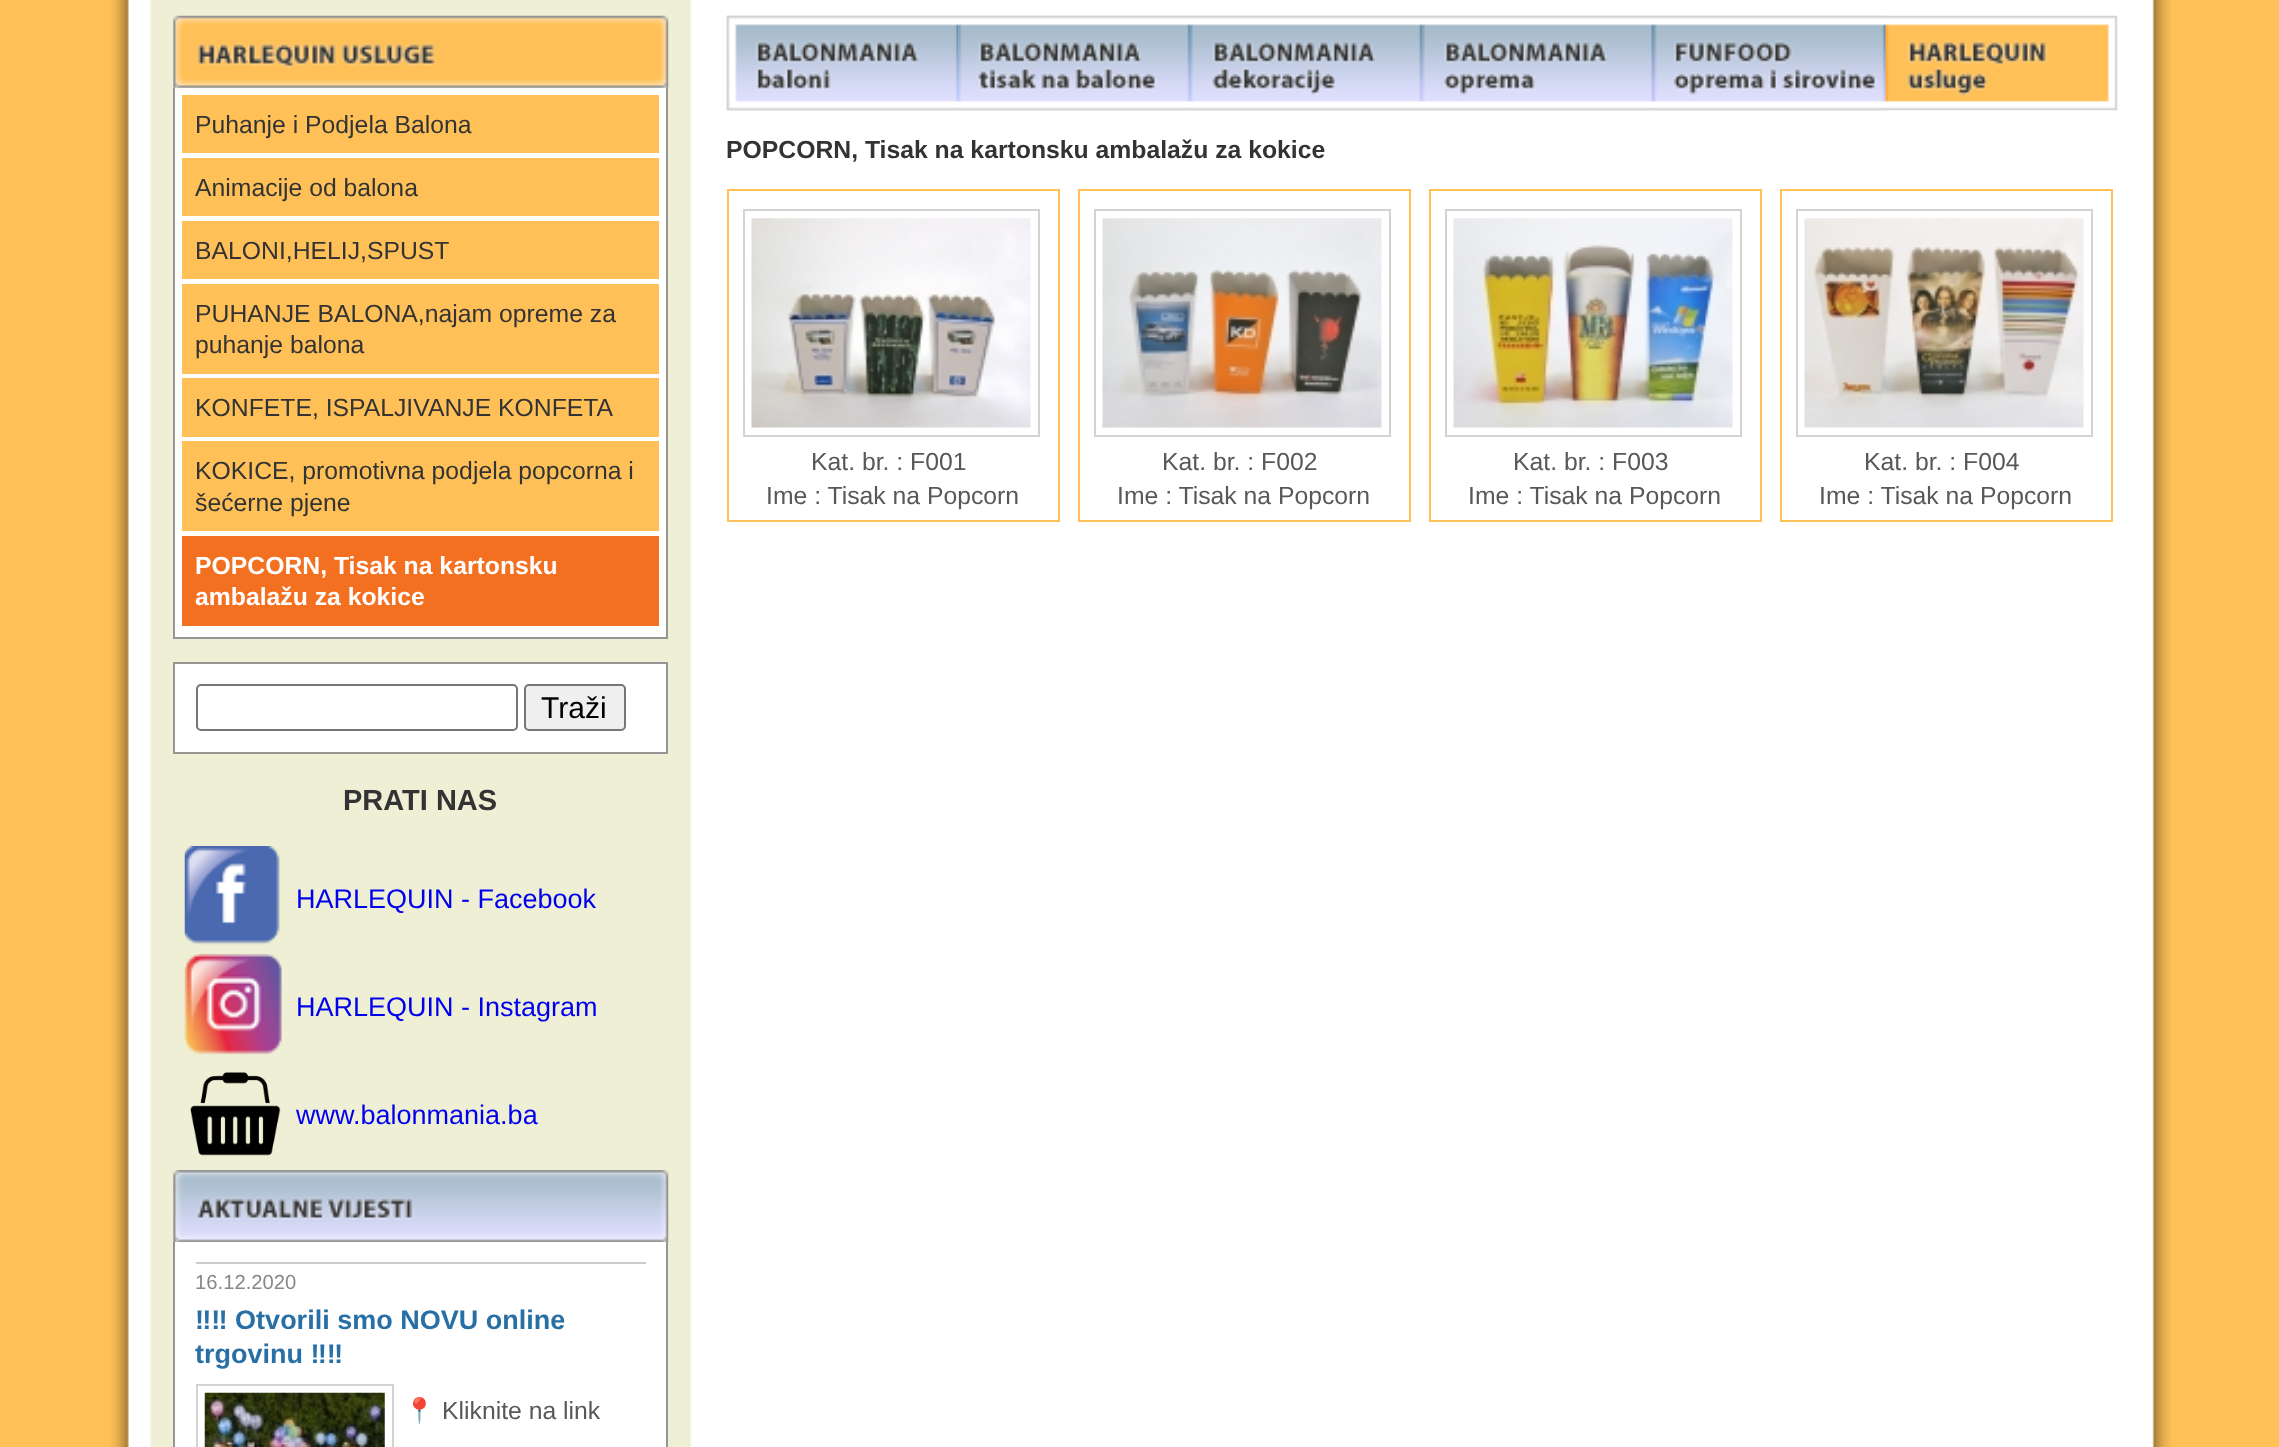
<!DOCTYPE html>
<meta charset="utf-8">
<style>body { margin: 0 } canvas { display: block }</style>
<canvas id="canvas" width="2279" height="1447"></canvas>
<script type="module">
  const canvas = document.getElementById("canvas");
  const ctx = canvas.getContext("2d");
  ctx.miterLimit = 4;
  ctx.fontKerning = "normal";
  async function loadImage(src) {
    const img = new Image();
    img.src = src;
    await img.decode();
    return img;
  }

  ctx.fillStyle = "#fec057";
  ctx.fillRect(0, 0, 2279, 1447);
  ctx.drawImage(await loadImage("img1.png"), 110, 0, 2061, 1447);
  ctx.drawImage(await loadImage("img2.png"), 173, 15, 496, 73);
  ctx.fillStyle = "#ffffff";
  ctx.fillRect(175, 88, 491, 549);
  ctx.fillStyle = "#959595";
  ctx.fillRect(666, 88, 2, 551);
  ctx.fillRect(173, 637, 495, 2);
  ctx.fillRect(173, 88, 2, 551);
  ctx.fillStyle = "#fec057";
  ctx.fillRect(182, 95, 477, 58);
  ctx.font = "24.75px Liberation Sans";
  ctx.fillStyle = "#333333";
  ctx.fillText("Puhanje i Podjela Balona", 195, 133);
  ctx.fillStyle = "#fec057";
  ctx.fillRect(182, 158, 477, 58);
  ctx.fillStyle = "#333333";
  ctx.fillText("Animacije od balona", 195, 196);
  ctx.fillStyle = "#fec057";
  ctx.fillRect(182, 221, 477, 58);
  ctx.fillStyle = "#333333";
  ctx.fillText("BALONI,HELIJ,SPUST", 195, 259);
  ctx.fillStyle = "#fec057";
  ctx.fillRect(182, 284, 477, 90);
  ctx.fillStyle = "#333333";
  ctx.fillText("PUHANJE BALONA,najam opreme za", 195, 322);
  ctx.fillText("puhanje balona", 195, 353);
  ctx.fillStyle = "#fec057";
  ctx.fillRect(182, 378, 477, 59);
  ctx.fillStyle = "#333333";
  ctx.fillText("KONFETE, ISPALJIVANJE KONFETA", 195, 416);
  ctx.fillStyle = "#fec057";
  ctx.fillRect(182, 441, 477, 90);
  ctx.fillStyle = "#333333";
  ctx.fillText("KOKICE, promotivna podjela popcorna i", 195, 479);
  ctx.fillText("šećerne pjene", 195, 511);
  ctx.fillStyle = "#f37021";
  ctx.fillRect(182, 536, 477, 90);
  ctx.font = "bold 24.75px Liberation Sans";
  ctx.fillStyle = "#ffffff";
  ctx.fillText("POPCORN, Tisak na kartonsku", 195, 574);
  ctx.fillText("ambalažu za kokice", 195, 605);
  ctx.beginPath();
  ctx.rect(174, 663, 493, 90);
  ctx.fill();
  ctx.strokeStyle = "#959595";
  ctx.lineWidth = 2;
  ctx.stroke();
  ctx.beginPath();
  ctx.roundRect(197, 685, 320, 45, 4);
  ctx.strokeStyle = "#767676";
  ctx.stroke();
  ctx.fillStyle = "#efefef";
  ctx.beginPath();
  ctx.roundRect(525, 685, 100, 45, 4);
  ctx.fill();
  ctx.stroke();
  ctx.font = "30px Liberation Sans";
  ctx.fillStyle = "#000000";
  ctx.fillText("Traži", 541, 718);
  ctx.font = "bold 29px Liberation Sans";
  ctx.fillStyle = "#333333";
  ctx.fillText("PRATI NAS", 343, 810);
  ctx.drawImage(await loadImage("img3.png"), 184, 846, 96, 99);
  ctx.font = "27px Liberation Sans";
  ctx.fillStyle = "#0000ee";
  ctx.fillText("HARLEQUIN - Facebook", 296, 908);
  ctx.drawImage(await loadImage("img4.png"), 184, 954, 98, 101);
  ctx.fillText("HARLEQUIN - Instagram", 296, 1016);
  ctx.drawImage(await loadImage("img5.png"), 190, 1072, 91, 84);
  ctx.fillText("www.balonmania.ba", 296, 1124);
  ctx.drawImage(await loadImage("img6.png"), 173, 1170, 496, 72);
  ctx.fillStyle = "#ffffff";
  ctx.fillRect(175, 1242, 491, 205);
  ctx.fillStyle = "#959595";
  ctx.fillRect(666, 1242, 2, 205);
  ctx.fillRect(173, 1242, 2, 205);
  ctx.fillStyle = "#cccccc";
  ctx.fillRect(196, 1262, 450, 2);
  ctx.font = "20.25px Liberation Sans";
  ctx.fillStyle = "#888888";
  ctx.fillText("16.12.2020", 195, 1289);
  ctx.font = "bold 27px Liberation Sans";
  ctx.fillStyle = "#276fa4";
  ctx.fillText("‼‼ Otvorili smo NOVU online", 195, 1329);
  ctx.fillText("trgovinu ‼‼", 195, 1363);
  ctx.strokeStyle = "#d3d3d3";
  ctx.strokeRect(197, 1385, 196, 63);
  ctx.drawImage(await loadImage("img7.png"), 204, 1392, 181, 55);
  ctx.font = "24.75px Noto Color Emoji";
  ctx.fillStyle = "#585858";
  ctx.fillText("📍", 404, 1419);
  ctx.font = "24.75px Liberation Sans";
  ctx.fillText("Kliknite na link", 442, 1419);
  ctx.drawImage(await loadImage("img8.png"), 726, 15, 233, 96);
  ctx.drawImage(await loadImage("img10.png"), 958, 15, 233, 96);
  ctx.drawImage(await loadImage("img9.png"), 726, 15, 233, 96);
  ctx.drawImage(await loadImage("img12.png"), 1190, 15, 232, 96);
  ctx.drawImage(await loadImage("img11.png"), 958, 15, 233, 96);
  ctx.drawImage(await loadImage("img13.png"), 1190, 15, 232, 96);
  ctx.drawImage(await loadImage("img14.png"), 1422, 15, 232, 96);
  ctx.drawImage(await loadImage("img16.png"), 1653, 15, 233, 96);
  ctx.drawImage(await loadImage("img15.png"), 1422, 15, 232, 96);
  ctx.drawImage(await loadImage("img18.png"), 1885, 15, 233, 96);
  ctx.drawImage(await loadImage("img17.png"), 1653, 15, 233, 96);
  ctx.font = "bold 24.75px Liberation Sans";
  ctx.fillStyle = "#333333";
  ctx.fillText("POPCORN, Tisak na kartonsku ambalažu za kokice", 726, 158);
  ctx.strokeStyle = "#fec057";
  ctx.strokeRect(728, 190, 331, 331);
  ctx.strokeStyle = "#d3d3d3";
  ctx.strokeRect(744, 210, 295, 226);
  ctx.drawImage(await loadImage("img19.png"), 751, 218, 280, 210);
  ctx.font = "24.75px Liberation Sans";
  ctx.fillStyle = "#585858";
  ctx.fillText("Kat. br. : F001", 811, 470);
  ctx.fillText("Ime : Tisak na Popcorn", 766, 504);
  ctx.strokeStyle = "#fec057";
  ctx.strokeRect(1079, 190, 331, 331);
  ctx.strokeStyle = "#d3d3d3";
  ctx.strokeRect(1095, 210, 295, 226);
  ctx.drawImage(await loadImage("img20.png"), 1102, 218, 280, 210);
  ctx.fillText("Kat. br. : F002", 1162, 470);
  ctx.fillText("Ime : Tisak na Popcorn", 1117, 504);
  ctx.strokeStyle = "#fec057";
  ctx.strokeRect(1430, 190, 331, 331);
  ctx.strokeStyle = "#d3d3d3";
  ctx.strokeRect(1446, 210, 295, 226);
  ctx.drawImage(await loadImage("img21.png"), 1453, 218, 280, 210);
  ctx.fillText("Kat. br. : F003", 1513, 470);
  ctx.fillText("Ime : Tisak na Popcorn", 1468, 504);
  ctx.strokeStyle = "#fec057";
  ctx.strokeRect(1781, 190, 331, 331);
  ctx.strokeStyle = "#d3d3d3";
  ctx.strokeRect(1797, 210, 295, 226);
  ctx.drawImage(await loadImage("img22.png"), 1804, 218, 280, 210);
  ctx.fillText("Kat. br. : F004", 1864, 470);
  ctx.fillText("Ime : Tisak na Popcorn", 1819, 504);
</script>
